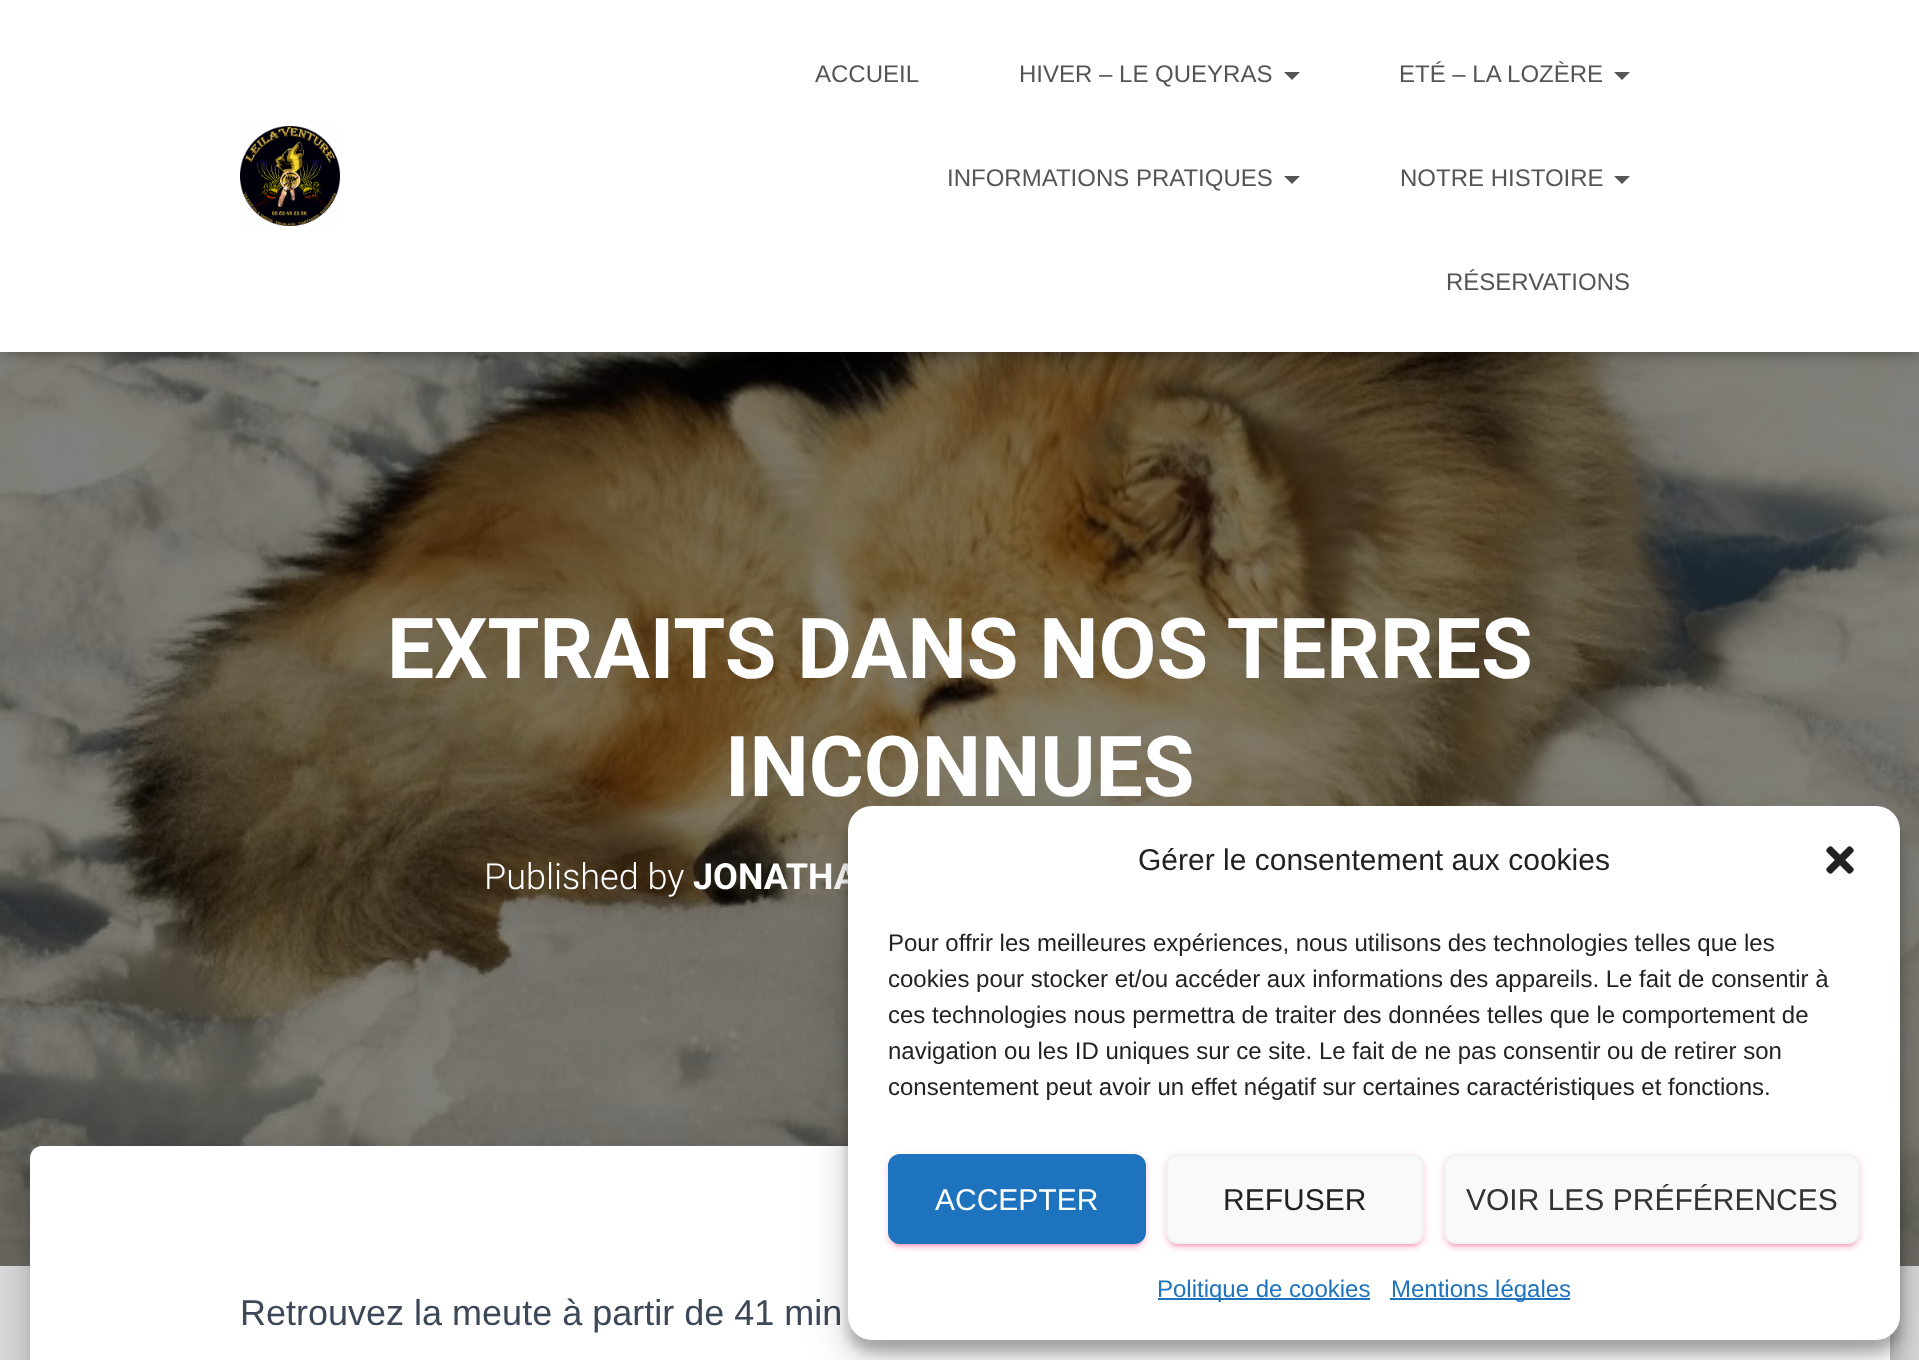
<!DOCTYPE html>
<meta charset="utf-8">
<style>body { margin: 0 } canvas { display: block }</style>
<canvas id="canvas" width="1919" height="1360"></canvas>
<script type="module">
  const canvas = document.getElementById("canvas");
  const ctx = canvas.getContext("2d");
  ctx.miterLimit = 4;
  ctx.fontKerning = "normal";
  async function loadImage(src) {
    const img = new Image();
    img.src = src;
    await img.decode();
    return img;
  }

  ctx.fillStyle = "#e5e5e5";
  ctx.fillRect(0, 0, 1919, 1360);
  ctx.fillStyle = "#737373";
  ctx.fillRect(0, 1264, 1919, 2);
  ctx.drawImage(await loadImage("img2.png"), 0, 352, 1919, 914);
  ctx.fillStyle = "rgba(0, 0, 0, 0.1)";
  ctx.filter = "blur(5px)";
  ctx.beginPath();
  ctx.rect(4, 12, 1912, 344);
  ctx.fill();
  ctx.filter = "none";
  ctx.fillStyle = "rgba(0, 0, 0, 0.12)";
  ctx.filter = "blur(10px)";
  ctx.beginPath();
  ctx.rect(0, 2, 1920, 352);
  ctx.fill();
  ctx.filter = "none";
  ctx.fillStyle = "rgba(0, 0, 0, 0.42)";
  ctx.filter = "blur(10px)";
  ctx.beginPath();
  ctx.rect(12, 14, 1896, 328);
  ctx.fill();
  ctx.filter = "none";
  ctx.fillStyle = "#ffffff";
  ctx.fillRect(0, 0, 1919, 352);
  ctx.drawImage(await loadImage("img1.png"), 240, 126, 100, 100);
  ctx.font = "24px Liberation Sans";
  ctx.fillStyle = "#555555";
  ctx.fillText("ACCUEIL", 815, 82);
  ctx.fillText("HIVER – LE QUEYRAS", 1019, 82);
  ctx.beginPath();
  ctx.moveTo(1284, 72);
  ctx.lineTo(1300, 72);
  ctx.lineTo(1292, 80);
  ctx.closePath();
  ctx.fill();
  ctx.fillText("ETÉ – LA LOZÈRE", 1399, 82);
  ctx.beginPath();
  ctx.moveTo(1614, 72);
  ctx.lineTo(1630, 72);
  ctx.lineTo(1622, 80);
  ctx.closePath();
  ctx.fill();
  ctx.fillText("INFORMATIONS PRATIQUES", 947, 186);
  ctx.beginPath();
  ctx.moveTo(1284, 176);
  ctx.lineTo(1300, 176);
  ctx.lineTo(1292, 184);
  ctx.closePath();
  ctx.fill();
  ctx.fillText("NOTRE HISTOIRE", 1400, 186);
  ctx.beginPath();
  ctx.moveTo(1614, 176);
  ctx.lineTo(1630, 176);
  ctx.lineTo(1622, 184);
  ctx.closePath();
  ctx.fill();
  ctx.fillText("RÉSERVATIONS", 1446, 290);
  ctx.font = "bold 84px Roboto";
  ctx.fillStyle = "#ffffff";
  ctx.fillText("EXTRAITS DANS NOS TERRES", 387, 678);
  ctx.fillText("INCONNUES", 725, 796);
  ctx.font = "300 36px Roboto";
  ctx.fillText("Published by", 484, 889);
  ctx.font = "bold 36px Roboto";
  ctx.fillText("JONATHA", 693, 889);
  ctx.fillStyle = "rgba(0, 0, 0, 0.2)";
  ctx.filter = "blur(10px)";
  ctx.beginPath();
  ctx.roundRect(40, 1172, 1840, 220, 2);
  ctx.fill();
  ctx.filter = "none";
  ctx.fillStyle = "rgba(0, 0, 0, 0.12)";
  ctx.filter = "blur(30px)";
  ctx.beginPath();
  ctx.roundRect(20, 1148, 1880, 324, 22);
  ctx.fill();
  ctx.filter = "none";
  ctx.fillStyle = "rgba(0, 0, 0, 0.14)";
  ctx.filter = "blur(24px)";
  ctx.beginPath();
  ctx.roundRect(26, 1174, 1868, 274, 16);
  ctx.fill();
  ctx.filter = "none";
  ctx.fillStyle = "#ffffff";
  ctx.beginPath();
  ctx.moveTo(42, 1146);
  ctx.lineTo(1878, 1146);
  ctx.bezierCurveTo(1884.5, 1146, 1890, 1151.5, 1890, 1158);
  ctx.lineTo(1890, 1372);
  ctx.lineTo(30, 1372);
  ctx.lineTo(30, 1158);
  ctx.bezierCurveTo(30, 1151.5, 35.5, 1146, 42, 1146);
  ctx.closePath();
  ctx.fill();
  ctx.font = "36px Liberation Sans";
  ctx.fillStyle = "#3c4858";
  ctx.fillText("Retrouvez la meute à partir de 41 min", 240, 1325);
  ctx.fillStyle = "rgba(0, 0, 0, 0.23)";
  ctx.filter = "blur(6px)";
  ctx.beginPath();
  ctx.roundRect(848, 818, 1052, 534, 24);
  ctx.fill();
  ctx.filter = "none";
  ctx.fillStyle = "rgba(0, 0, 0, 0.19)";
  ctx.filter = "blur(20px)";
  ctx.beginPath();
  ctx.roundRect(848, 826, 1052, 534, 24);
  ctx.fill();
  ctx.filter = "none";
  ctx.fillStyle = "#ffffff";
  ctx.beginPath();
  ctx.roundRect(848, 806, 1052, 534, 24);
  ctx.fill();
  ctx.font = "30px Liberation Sans";
  ctx.fillStyle = "#222222";
  ctx.fillText("Gérer le consentement aux cookies", 1138, 870);
  ctx.drawImage(await loadImage("img3.png"), 1826, 846, 28, 28);
  ctx.font = "24px Liberation Sans";
  ctx.fillText("Pour offrir les meilleures expériences, nous utilisons des technologies telles que les", 888, 951);
  ctx.fillText("cookies pour stocker et/ou accéder aux informations des appareils. Le fait de consentir à", 888, 987);
  ctx.fillText("ces technologies nous permettra de traiter des données telles que le comportement de", 888, 1023);
  ctx.fillText("navigation ou les ID uniques sur ce site. Le fait de ne pas consentir ou de retirer son", 888, 1059);
  ctx.fillText("consentement peut avoir un effet négatif sur certaines caractéristiques et fonctions.", 888, 1095);
  ctx.fillStyle = "rgba(233, 30, 99, 0.12)";
  ctx.filter = "blur(5px)";
  ctx.beginPath();
  ctx.roundRect(888, 1156, 258, 90, 12);
  ctx.fill();
  ctx.filter = "none";
  ctx.fillStyle = "rgba(233, 30, 99, 0.2)";
  ctx.filter = "blur(1px)";
  ctx.beginPath();
  ctx.roundRect(892, 1164, 250, 82, 8);
  ctx.fill();
  ctx.filter = "none";
  ctx.fillStyle = "rgba(233, 30, 99, 0.14)";
  ctx.filter = "blur(2px)";
  ctx.beginPath();
  ctx.roundRect(888, 1158, 258, 90, 12);
  ctx.fill();
  ctx.filter = "none";
  ctx.fillStyle = "#1e73be";
  ctx.beginPath();
  ctx.roundRect(889, 1155, 256, 88, 11);
  ctx.fill();
  ctx.strokeStyle = "#1e73be";
  ctx.lineWidth = 2;
  ctx.stroke();
  ctx.font = "30px Liberation Sans";
  ctx.fillStyle = "#ffffff";
  ctx.fillText("ACCEPTER", 935, 1210);
  ctx.fillStyle = "rgba(233, 30, 99, 0.12)";
  ctx.filter = "blur(5px)";
  ctx.beginPath();
  ctx.roundRect(1166, 1156, 258, 90, 12);
  ctx.fill();
  ctx.filter = "none";
  ctx.fillStyle = "rgba(233, 30, 99, 0.2)";
  ctx.filter = "blur(1px)";
  ctx.beginPath();
  ctx.roundRect(1170, 1164, 250, 82, 8);
  ctx.fill();
  ctx.filter = "none";
  ctx.fillStyle = "rgba(233, 30, 99, 0.14)";
  ctx.filter = "blur(2px)";
  ctx.beginPath();
  ctx.roundRect(1166, 1158, 258, 90, 12);
  ctx.fill();
  ctx.filter = "none";
  ctx.fillStyle = "#f9f9f9";
  ctx.beginPath();
  ctx.roundRect(1167, 1155, 256, 88, 11);
  ctx.fill();
  ctx.strokeStyle = "#f2f2f2";
  ctx.stroke();
  ctx.fillStyle = "#222222";
  ctx.fillText("REFUSER", 1223, 1210);
  ctx.fillStyle = "rgba(233, 30, 99, 0.12)";
  ctx.filter = "blur(5px)";
  ctx.beginPath();
  ctx.roundRect(1444, 1156, 416, 90, 12);
  ctx.fill();
  ctx.filter = "none";
  ctx.fillStyle = "rgba(233, 30, 99, 0.2)";
  ctx.filter = "blur(1px)";
  ctx.beginPath();
  ctx.roundRect(1448, 1164, 408, 82, 8);
  ctx.fill();
  ctx.filter = "none";
  ctx.fillStyle = "rgba(233, 30, 99, 0.14)";
  ctx.filter = "blur(2px)";
  ctx.beginPath();
  ctx.roundRect(1444, 1158, 416, 90, 12);
  ctx.fill();
  ctx.filter = "none";
  ctx.fillStyle = "#f9f9f9";
  ctx.beginPath();
  ctx.roundRect(1445, 1155, 414, 88, 11);
  ctx.fill();
  ctx.stroke();
  ctx.fillStyle = "#333333";
  ctx.fillText("VOIR LES PRÉFÉRENCES", 1466, 1210);
  ctx.fillStyle = "#1e73be";
  ctx.fillRect(1158, 1298, 212, 2);
  ctx.font = "24px Liberation Sans";
  ctx.fillText("Politique de cookies", 1157, 1297);
  ctx.fillRect(1390, 1298, 180, 2);
  ctx.fillText("Mentions légales", 1391, 1297);
</script>
